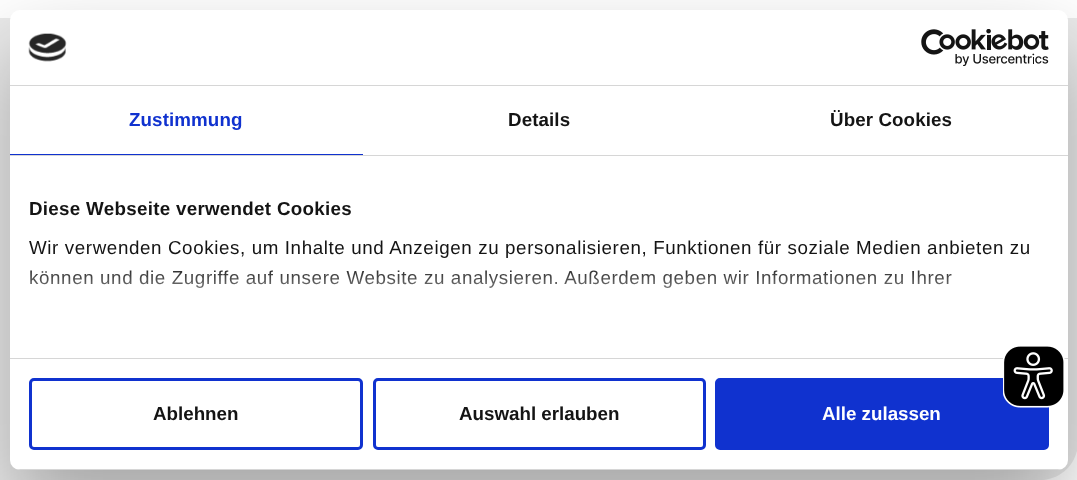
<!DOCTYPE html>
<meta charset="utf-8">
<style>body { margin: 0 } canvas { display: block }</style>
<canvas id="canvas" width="1077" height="480"></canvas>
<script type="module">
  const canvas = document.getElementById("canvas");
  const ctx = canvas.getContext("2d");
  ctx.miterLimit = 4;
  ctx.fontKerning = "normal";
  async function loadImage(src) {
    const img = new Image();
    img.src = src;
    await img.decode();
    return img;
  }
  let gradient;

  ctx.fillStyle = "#ffffff";
  ctx.fillRect(0, 0, 1077, 480);
  ctx.fillStyle = "#ebebeb";
  ctx.beginPath();
  ctx.moveTo(0, 18);
  ctx.lineTo(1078, 18);
  ctx.lineTo(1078, 442);
  ctx.bezierCurveTo(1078, 463, 1061, 480, 1040, 480);
  ctx.lineTo(0, 480);
  ctx.closePath();
  ctx.fill();
  ctx.fillStyle = "rgba(0, 0, 0, 0.3)";
  ctx.filter = "blur(42.5px)";
  ctx.beginPath();
  ctx.roundRect(10, 50, 1058, 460, 10);
  ctx.fill();
  ctx.filter = "none";
  ctx.fillStyle = "#ffffff";
  ctx.beginPath();
  ctx.roundRect(10, 10, 1058, 460, 10);
  ctx.fill();
  ctx.fillStyle = "#d6d6d6";
  ctx.fillRect(10, 85, 1058, 1);
  ctx.drawImage(await loadImage("img1.png"), 28, 33, 39, 29);
  ctx.drawImage(await loadImage("img2.png"), 921, 29, 128, 37);
  ctx.fillRect(10, 155, 1058, 1);
  ctx.fillStyle = "#1032cf";
  ctx.fillRect(10, 154, 353, 1);
  ctx.letterSpacing = "0.1px";
  ctx.font = "bold 18.75px Liberation Sans";
  ctx.fillText("Zustimmung", 129, 126);
  ctx.fillStyle = "#141414";
  ctx.fillText("Details", 508, 126);
  ctx.fillText("Über Cookies", 830, 126);
  ctx.fillStyle = "#d6d6d6";
  ctx.fillRect(10, 358, 1058, 1);
  ctx.letterSpacing = "0.3px";
  ctx.fillStyle = "#141414";
  ctx.fillText("Diese Webseite verwendet Cookies", 29, 215);
  ctx.letterSpacing = "0.62px";
  ctx.font = "18.75px Liberation Sans";
  ctx.fillText("Wir verwenden Cookies, um Inhalte und Anzeigen zu personalisieren, Funktionen für soziale Medien anbieten zu", 29, 254);
  ctx.fillText("können und die Zugriffe auf unsere Website zu analysieren. Außerdem geben wir Informationen zu Ihrer", 29, 284);
  gradient = ctx.createLinearGradient(531, 358, 531, 264);
  gradient.addColorStop(0, "#ffffff");
  gradient.addColorStop(0.5, "rgba(255, 255, 255, 0.8)");
  gradient.addColorStop(1, "rgba(255, 255, 255, 0)");
  ctx.fillStyle = gradient;
  ctx.fillRect(30, 270, 922, 18);
  ctx.save();
  ctx.beginPath();
  ctx.roundRect(10, 10, 1058, 460, 10);
  ctx.clip();
  ctx.fillStyle = "#d6d6d6";
  ctx.fillRect(10, 469, 1058, 1);
  ctx.restore();
  ctx.beginPath();
  ctx.roundRect(30.5, 379.5, 331, 69, 3.5);
  ctx.strokeStyle = "#1032cf";
  ctx.lineWidth = 3;
  ctx.stroke();
  ctx.letterSpacing = "0px";
  ctx.font = "bold 18.75px Liberation Sans";
  ctx.fillStyle = "#141414";
  ctx.fillText("Ablehnen", 153, 420);
  ctx.beginPath();
  ctx.roundRect(374.5, 379.5, 330, 69, 3.5);
  ctx.stroke();
  ctx.fillText("Auswahl erlauben", 459, 420);
  ctx.fillStyle = "#1032cf";
  ctx.beginPath();
  ctx.roundRect(716.5, 379.5, 331, 69, 3.5);
  ctx.fill();
  ctx.stroke();
  ctx.fillStyle = "#ffffff";
  ctx.fillText("Alle zulassen", 822, 420);
  ctx.drawImage(await loadImage("img3.png"), 1003, 346, 62, 62);
</script>
